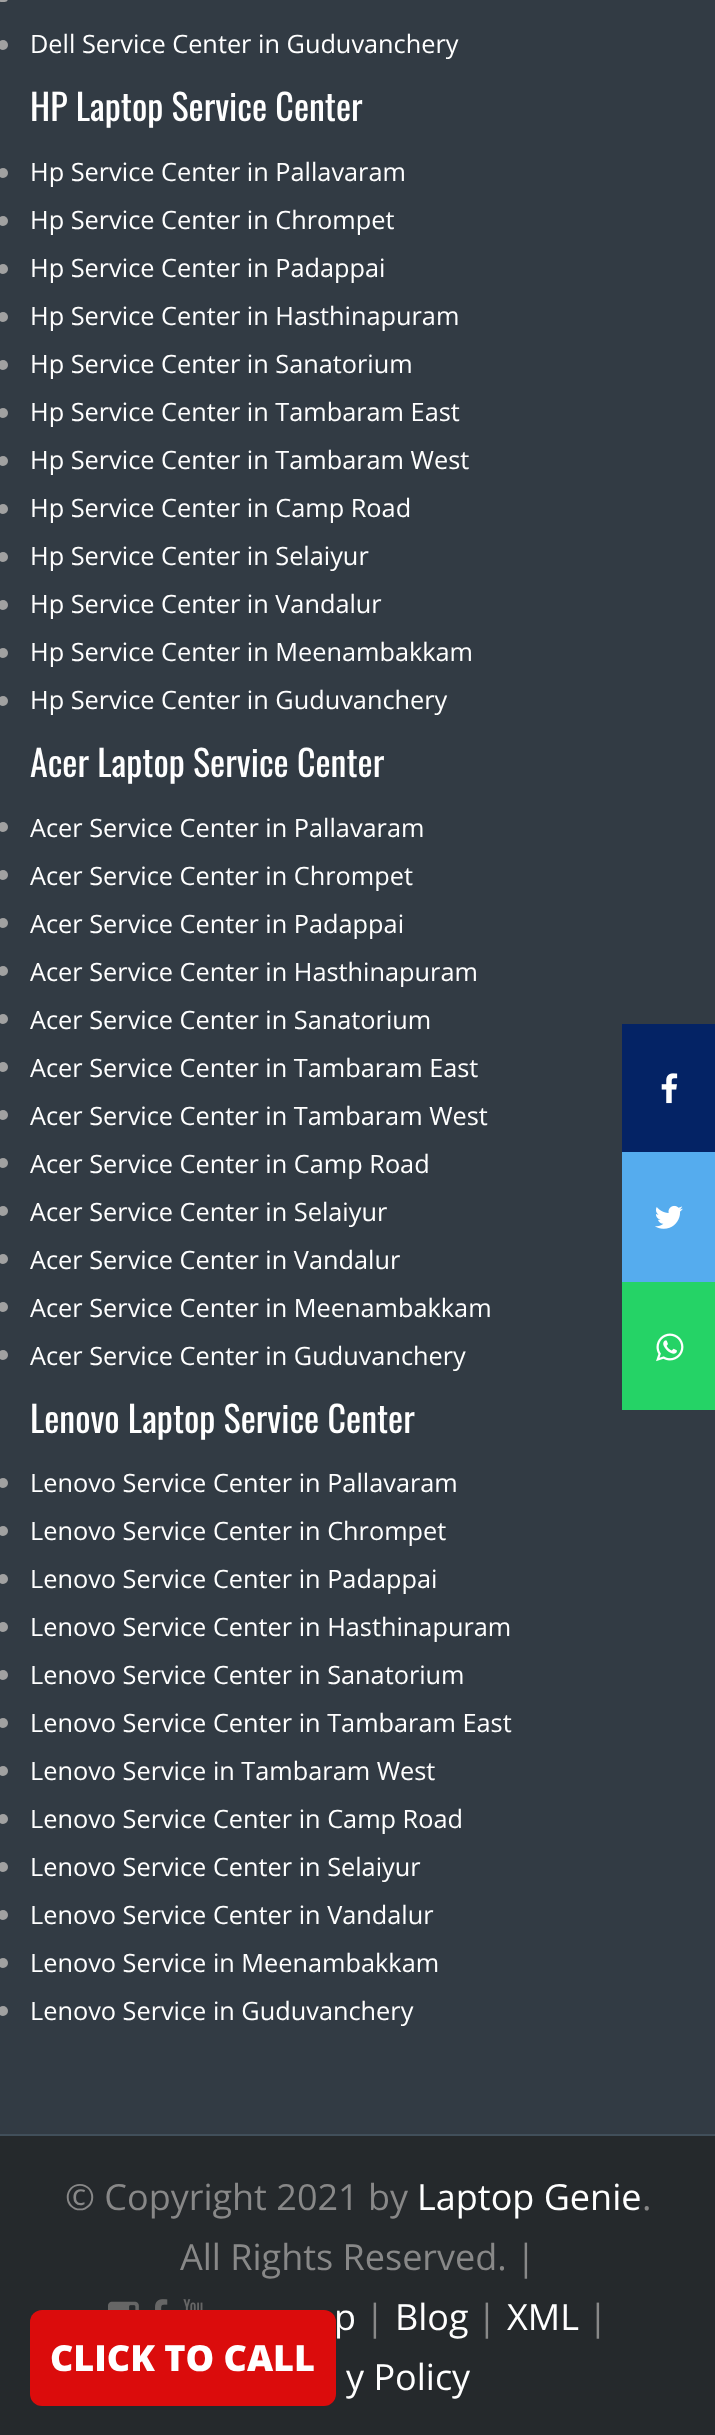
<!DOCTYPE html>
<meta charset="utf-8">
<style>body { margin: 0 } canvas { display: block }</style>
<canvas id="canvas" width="715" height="2435"></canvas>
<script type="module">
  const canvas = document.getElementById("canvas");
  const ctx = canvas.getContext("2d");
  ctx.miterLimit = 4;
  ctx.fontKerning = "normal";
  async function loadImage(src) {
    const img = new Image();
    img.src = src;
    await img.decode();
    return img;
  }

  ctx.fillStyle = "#323b44";
  ctx.fillRect(0, 0, 715, 2435);
  ctx.fillStyle = "#414f5a";
  ctx.fillRect(0, 2134, 715, 2);
  ctx.fillStyle = "#a1a1a1";
  ctx.beginPath();
  ctx.roundRect(-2, -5, 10, 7, 5);
  ctx.fill();
  ctx.beginPath();
  ctx.arc(3, 45, 5, 0, Math.PI * 2);
  ctx.fill();
  ctx.font = "25.3px Open Sans";
  ctx.fillStyle = "#ffffff";
  ctx.fillText("Dell Service Center in Guduvanchery", 30, 53);
  ctx.font = "36px Oswald";
  ctx.fillText("HP Laptop Service Center", 30, 121);
  ctx.fillStyle = "#a1a1a1";
  ctx.beginPath();
  ctx.arc(3, 173, 5, 0, Math.PI * 2);
  ctx.fill();
  ctx.font = "25.3px Open Sans";
  ctx.fillStyle = "#ffffff";
  ctx.fillText("Hp Service Center in Pallavaram", 30, 181);
  ctx.fillStyle = "#a1a1a1";
  ctx.beginPath();
  ctx.arc(3, 221, 5, 0, Math.PI * 2);
  ctx.fill();
  ctx.fillStyle = "#ffffff";
  ctx.fillText("Hp Service Center in Chrompet", 30, 229);
  ctx.fillStyle = "#a1a1a1";
  ctx.beginPath();
  ctx.arc(3, 269, 5, 0, Math.PI * 2);
  ctx.fill();
  ctx.fillStyle = "#ffffff";
  ctx.fillText("Hp Service Center in Padappai", 30, 277);
  ctx.fillStyle = "#a1a1a1";
  ctx.beginPath();
  ctx.arc(3, 317, 5, 0, Math.PI * 2);
  ctx.fill();
  ctx.fillStyle = "#ffffff";
  ctx.fillText("Hp Service Center in Hasthinapuram", 30, 325);
  ctx.fillStyle = "#a1a1a1";
  ctx.beginPath();
  ctx.arc(3, 365, 5, 0, Math.PI * 2);
  ctx.fill();
  ctx.fillStyle = "#ffffff";
  ctx.fillText("Hp Service Center in Sanatorium", 30, 373);
  ctx.fillStyle = "#a1a1a1";
  ctx.beginPath();
  ctx.arc(3, 413, 5, 0, Math.PI * 2);
  ctx.fill();
  ctx.fillStyle = "#ffffff";
  ctx.fillText("Hp Service Center in Tambaram East", 30, 421);
  ctx.fillStyle = "#a1a1a1";
  ctx.beginPath();
  ctx.arc(3, 461, 5, 0, Math.PI * 2);
  ctx.fill();
  ctx.fillStyle = "#ffffff";
  ctx.fillText("Hp Service Center in Tambaram West", 30, 469);
  ctx.fillStyle = "#a1a1a1";
  ctx.beginPath();
  ctx.arc(3, 509, 5, 0, Math.PI * 2);
  ctx.fill();
  ctx.fillStyle = "#ffffff";
  ctx.fillText("Hp Service Center in Camp Road", 30, 517);
  ctx.fillStyle = "#a1a1a1";
  ctx.beginPath();
  ctx.arc(3, 557, 5, 0, Math.PI * 2);
  ctx.fill();
  ctx.fillStyle = "#ffffff";
  ctx.fillText("Hp Service Center in Selaiyur", 30, 565);
  ctx.fillStyle = "#a1a1a1";
  ctx.beginPath();
  ctx.arc(3, 605, 5, 0, Math.PI * 2);
  ctx.fill();
  ctx.fillStyle = "#ffffff";
  ctx.fillText("Hp Service Center in Vandalur", 30, 613);
  ctx.fillStyle = "#a1a1a1";
  ctx.beginPath();
  ctx.arc(3, 653, 5, 0, Math.PI * 2);
  ctx.fill();
  ctx.fillStyle = "#ffffff";
  ctx.fillText("Hp Service Center in Meenambakkam", 30, 661);
  ctx.fillStyle = "#a1a1a1";
  ctx.beginPath();
  ctx.arc(3, 701, 5, 0, Math.PI * 2);
  ctx.fill();
  ctx.fillStyle = "#ffffff";
  ctx.fillText("Hp Service Center in Guduvanchery", 30, 709);
  ctx.font = "36px Oswald";
  ctx.fillText("Acer Laptop Service Center", 30, 777);
  ctx.fillStyle = "#a1a1a1";
  ctx.beginPath();
  ctx.arc(3, 827, 5, 0, Math.PI * 2);
  ctx.fill();
  ctx.font = "25.3px Open Sans";
  ctx.fillStyle = "#ffffff";
  ctx.fillText("Acer Service Center in Pallavaram", 30, 837);
  ctx.fillStyle = "#a1a1a1";
  ctx.beginPath();
  ctx.arc(3, 875, 5, 0, Math.PI * 2);
  ctx.fill();
  ctx.fillStyle = "#ffffff";
  ctx.fillText("Acer Service Center in Chrompet", 30, 885);
  ctx.fillStyle = "#a1a1a1";
  ctx.beginPath();
  ctx.arc(3, 923, 5, 0, Math.PI * 2);
  ctx.fill();
  ctx.fillStyle = "#ffffff";
  ctx.fillText("Acer Service Center in Padappai", 30, 933);
  ctx.fillStyle = "#a1a1a1";
  ctx.beginPath();
  ctx.arc(3, 971, 5, 0, Math.PI * 2);
  ctx.fill();
  ctx.fillStyle = "#ffffff";
  ctx.fillText("Acer Service Center in Hasthinapuram", 30, 981);
  ctx.fillStyle = "#a1a1a1";
  ctx.beginPath();
  ctx.arc(3, 1019, 5, 0, Math.PI * 2);
  ctx.fill();
  ctx.fillStyle = "#ffffff";
  ctx.fillText("Acer Service Center in Sanatorium", 30, 1029);
  ctx.fillStyle = "#a1a1a1";
  ctx.beginPath();
  ctx.arc(3, 1067, 5, 0, Math.PI * 2);
  ctx.fill();
  ctx.fillStyle = "#ffffff";
  ctx.fillText("Acer Service Center in Tambaram East", 30, 1077);
  ctx.fillStyle = "#a1a1a1";
  ctx.beginPath();
  ctx.arc(3, 1115, 5, 0, Math.PI * 2);
  ctx.fill();
  ctx.fillStyle = "#ffffff";
  ctx.fillText("Acer Service Center in Tambaram West", 30, 1125);
  ctx.fillStyle = "#a1a1a1";
  ctx.beginPath();
  ctx.arc(3, 1163, 5, 0, Math.PI * 2);
  ctx.fill();
  ctx.fillStyle = "#ffffff";
  ctx.fillText("Acer Service Center in Camp Road", 30, 1173);
  ctx.fillStyle = "#a1a1a1";
  ctx.beginPath();
  ctx.arc(3, 1211, 5, 0, Math.PI * 2);
  ctx.fill();
  ctx.fillStyle = "#ffffff";
  ctx.fillText("Acer Service Center in Selaiyur", 30, 1221);
  ctx.fillStyle = "#a1a1a1";
  ctx.beginPath();
  ctx.arc(3, 1259, 5, 0, Math.PI * 2);
  ctx.fill();
  ctx.fillStyle = "#ffffff";
  ctx.fillText("Acer Service Center in Vandalur", 30, 1269);
  ctx.fillStyle = "#a1a1a1";
  ctx.beginPath();
  ctx.arc(3, 1307, 5, 0, Math.PI * 2);
  ctx.fill();
  ctx.fillStyle = "#ffffff";
  ctx.fillText("Acer Service Center in Meenambakkam", 30, 1317);
  ctx.fillStyle = "#a1a1a1";
  ctx.beginPath();
  ctx.arc(3, 1355, 5, 0, Math.PI * 2);
  ctx.fill();
  ctx.fillStyle = "#ffffff";
  ctx.fillText("Acer Service Center in Guduvanchery", 30, 1365);
  ctx.font = "36px Oswald";
  ctx.fillText("Lenovo Laptop Service Center", 30, 1433);
  ctx.fillStyle = "#a1a1a1";
  ctx.beginPath();
  ctx.arc(3, 1483, 5, 0, Math.PI * 2);
  ctx.fill();
  ctx.font = "25.3px Open Sans";
  ctx.fillStyle = "#ffffff";
  ctx.fillText("Lenovo Service Center in Pallavaram", 30, 1492);
  ctx.fillStyle = "#a1a1a1";
  ctx.beginPath();
  ctx.arc(3, 1531, 5, 0, Math.PI * 2);
  ctx.fill();
  ctx.fillStyle = "#ffffff";
  ctx.fillText("Lenovo Service Center in Chrompet", 30, 1540);
  ctx.fillStyle = "#a1a1a1";
  ctx.beginPath();
  ctx.arc(3, 1579, 5, 0, Math.PI * 2);
  ctx.fill();
  ctx.fillStyle = "#ffffff";
  ctx.fillText("Lenovo Service Center in Padappai", 30, 1588);
  ctx.fillStyle = "#a1a1a1";
  ctx.beginPath();
  ctx.arc(3, 1627, 5, 0, Math.PI * 2);
  ctx.fill();
  ctx.fillStyle = "#ffffff";
  ctx.fillText("Lenovo Service Center in Hasthinapuram", 30, 1636);
  ctx.fillStyle = "#a1a1a1";
  ctx.beginPath();
  ctx.arc(3, 1675, 5, 0, Math.PI * 2);
  ctx.fill();
  ctx.fillStyle = "#ffffff";
  ctx.fillText("Lenovo Service Center in Sanatorium", 30, 1684);
  ctx.fillStyle = "#a1a1a1";
  ctx.beginPath();
  ctx.arc(3, 1723, 5, 0, Math.PI * 2);
  ctx.fill();
  ctx.fillStyle = "#ffffff";
  ctx.fillText("Lenovo Service Center in Tambaram East", 30, 1732);
  ctx.fillStyle = "#a1a1a1";
  ctx.beginPath();
  ctx.arc(3, 1771, 5, 0, Math.PI * 2);
  ctx.fill();
  ctx.fillStyle = "#ffffff";
  ctx.fillText("Lenovo Service in Tambaram West", 30, 1780);
  ctx.fillStyle = "#a1a1a1";
  ctx.beginPath();
  ctx.arc(3, 1819, 5, 0, Math.PI * 2);
  ctx.fill();
  ctx.fillStyle = "#ffffff";
  ctx.fillText("Lenovo Service Center in Camp Road", 30, 1828);
  ctx.fillStyle = "#a1a1a1";
  ctx.beginPath();
  ctx.arc(3, 1867, 5, 0, Math.PI * 2);
  ctx.fill();
  ctx.fillStyle = "#ffffff";
  ctx.fillText("Lenovo Service Center in Selaiyur", 30, 1876);
  ctx.fillStyle = "#a1a1a1";
  ctx.beginPath();
  ctx.arc(3, 1915, 5, 0, Math.PI * 2);
  ctx.fill();
  ctx.fillStyle = "#ffffff";
  ctx.fillText("Lenovo Service Center in Vandalur", 30, 1924);
  ctx.fillStyle = "#a1a1a1";
  ctx.beginPath();
  ctx.arc(3, 1963, 5, 0, Math.PI * 2);
  ctx.fill();
  ctx.fillStyle = "#ffffff";
  ctx.fillText("Lenovo Service in Meenambakkam", 30, 1972);
  ctx.fillStyle = "#a1a1a1";
  ctx.beginPath();
  ctx.arc(3, 2011, 5, 0, Math.PI * 2);
  ctx.fill();
  ctx.fillStyle = "#ffffff";
  ctx.fillText("Lenovo Service in Guduvanchery", 30, 2020);
  ctx.fillStyle = "#042365";
  ctx.fillRect(622, 1024, 93, 128);
  ctx.drawImage(await loadImage("img1.png"), 661, 1073, 17, 31);
  ctx.fillStyle = "#55acee";
  ctx.fillRect(622, 1152, 93, 130);
  ctx.drawImage(await loadImage("img2.png"), 655, 1205, 28, 24);
  ctx.fillStyle = "#25d366";
  ctx.fillRect(622, 1282, 93, 128);
  ctx.drawImage(await loadImage("img3.png"), 656, 1333, 28, 29);
  ctx.fillStyle = "#25292c";
  ctx.fillRect(0, 2136, 715, 299);
  ctx.font = "36px Open Sans";
  ctx.fillStyle = "#888888";
  ctx.fillText("© Copyright 2021 by", 65, 2210);
  ctx.fillStyle = "#ffffff";
  ctx.fillText("Laptop Genie", 417, 2210);
  ctx.fillStyle = "#888888";
  ctx.fillText(".", 642, 2210);
  ctx.fillText("All Rights Reserved. |", 180, 2270);
  ctx.drawImage(await loadImage("img4.png"), 108, 2301, 31, 9);
  ctx.drawImage(await loadImage("img5.png"), 155, 2299, 13, 11);
  ctx.drawImage(await loadImage("img6.png"), 183, 2299, 20, 11);
  ctx.fillStyle = "#ffffff";
  ctx.fillText("p", 334, 2330);
  ctx.fillStyle = "#888888";
  ctx.fillText("|", 365, 2330);
  ctx.fillStyle = "#ffffff";
  ctx.fillText("Blog", 395, 2330);
  ctx.fillStyle = "#888888";
  ctx.fillText("|", 477, 2330);
  ctx.fillStyle = "#ffffff";
  ctx.fillText("XML", 507, 2330);
  ctx.fillStyle = "#888888";
  ctx.fillText("|", 588, 2330);
  ctx.fillStyle = "#ffffff";
  ctx.fillText("y Policy", 346, 2390);
  ctx.fillStyle = "#db0c0c";
  ctx.beginPath();
  ctx.roundRect(30, 2310, 306, 96, 12);
  ctx.fill();
  ctx.font = "800 36px Open Sans";
  ctx.fillStyle = "#ffffff";
  ctx.fillText("CLICK TO CALL", 50, 2371);
</script>
